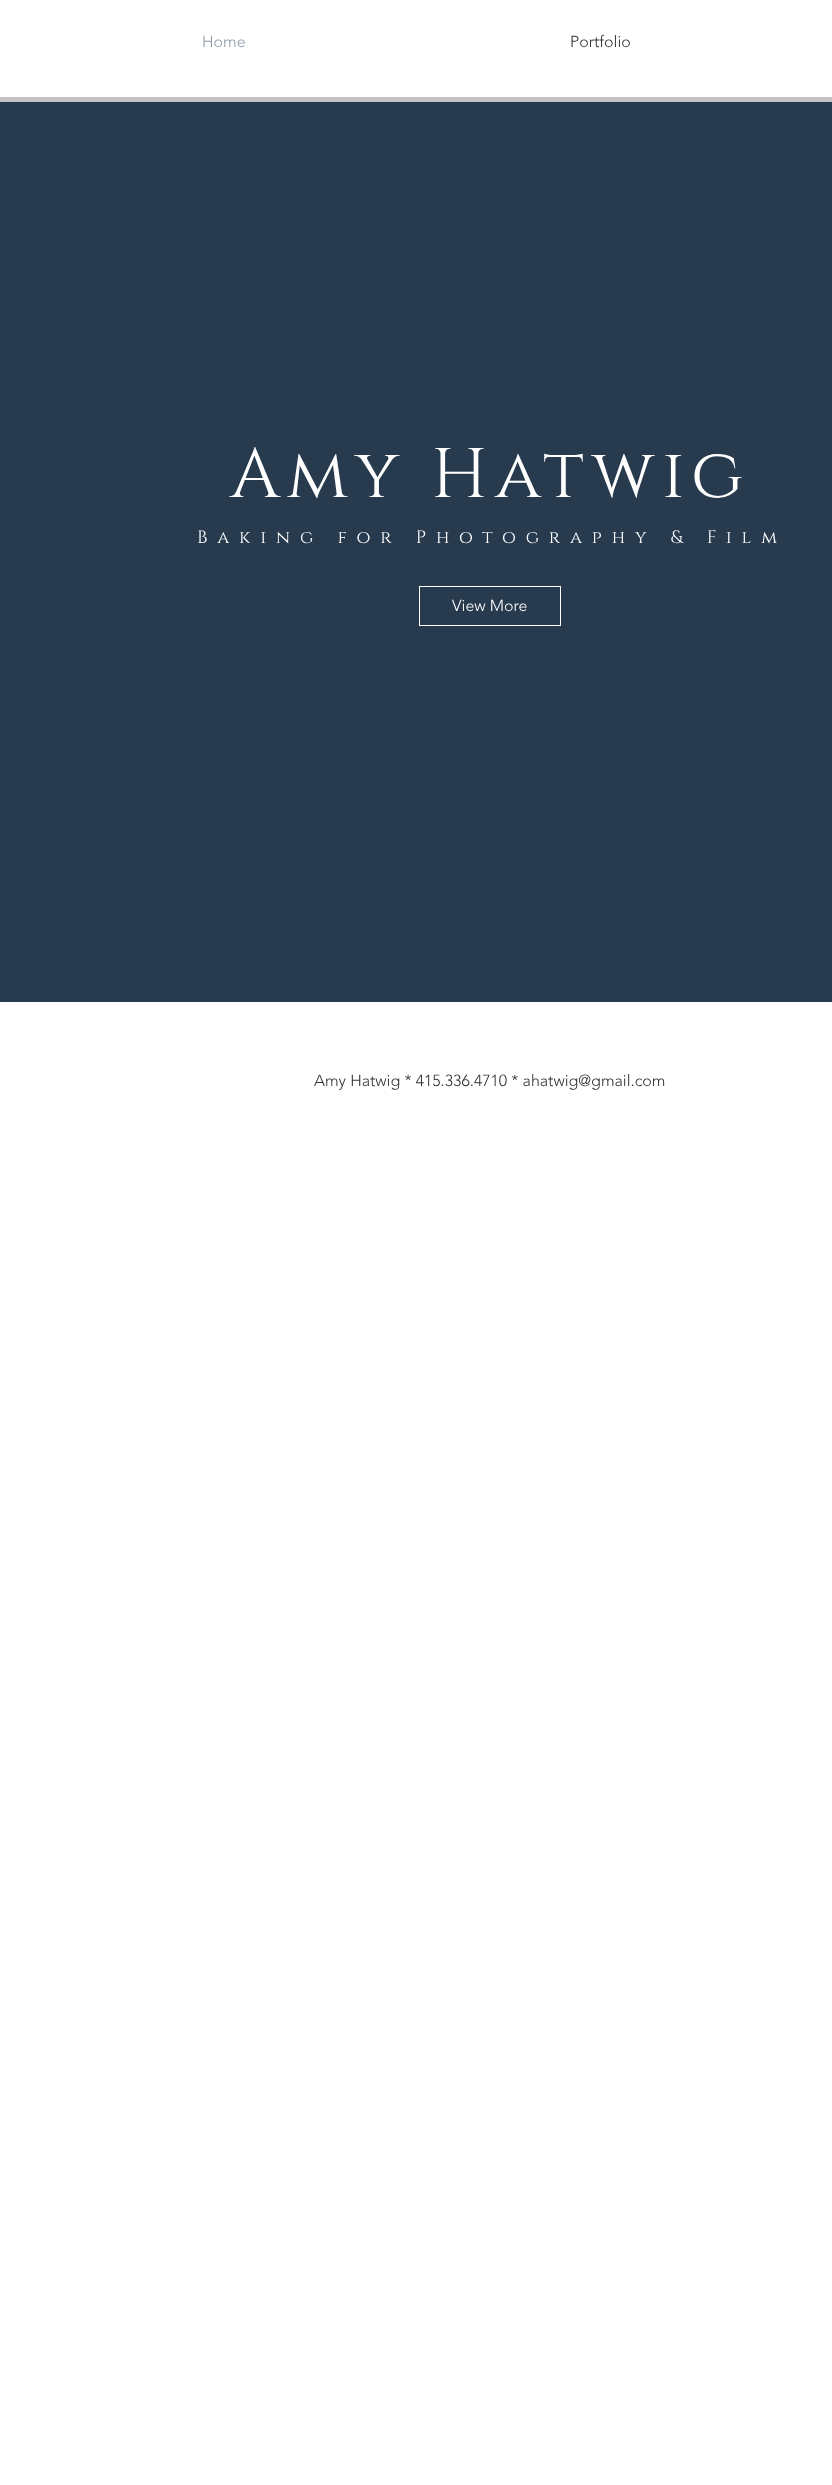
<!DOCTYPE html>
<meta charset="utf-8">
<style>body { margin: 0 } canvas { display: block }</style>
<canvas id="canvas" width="832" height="2485"></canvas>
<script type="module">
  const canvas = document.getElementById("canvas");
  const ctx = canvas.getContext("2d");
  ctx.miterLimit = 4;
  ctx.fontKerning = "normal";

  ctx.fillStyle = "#ffffff";
  ctx.fillRect(0, 0, 832, 2485);
  ctx.font = "300 16px 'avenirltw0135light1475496'";
  ctx.fillStyle = "#8b98a7";
  ctx.fillText("Home", 202, 47);
  ctx.fillStyle = "#303131";
  ctx.fillText("Portfolio", 570, 47);
  ctx.fillStyle = "#c2c2c2";
  ctx.fillRect(0, 97, 832, 5);
  ctx.fillStyle = "#273a4e";
  ctx.fillRect(0, 102, 832, 900);
  ctx.letterSpacing = "7px";
  ctx.font = "70px Cinzel";
  ctx.fillStyle = "#ffffff";
  ctx.fillText("Amy Hatwig", 230, 497);
  ctx.letterSpacing = "9.9px";
  ctx.font = "18px Cinzel";
  ctx.fillText("Baking for Photography & Film", 197, 543);
  ctx.strokeStyle = "#ffffff";
  ctx.strokeRect(419.5, 586.5, 141, 39);
  ctx.letterSpacing = "0px";
  ctx.font = "300 16px 'avenirltw0135light1475496'";
  ctx.fillText("View More", 452, 611);
  ctx.fillStyle = "#303131";
  ctx.fillText("Amy Hatwig * 415.336.4710 * ahatwig@gmail.com", 314, 1086);
</script>
